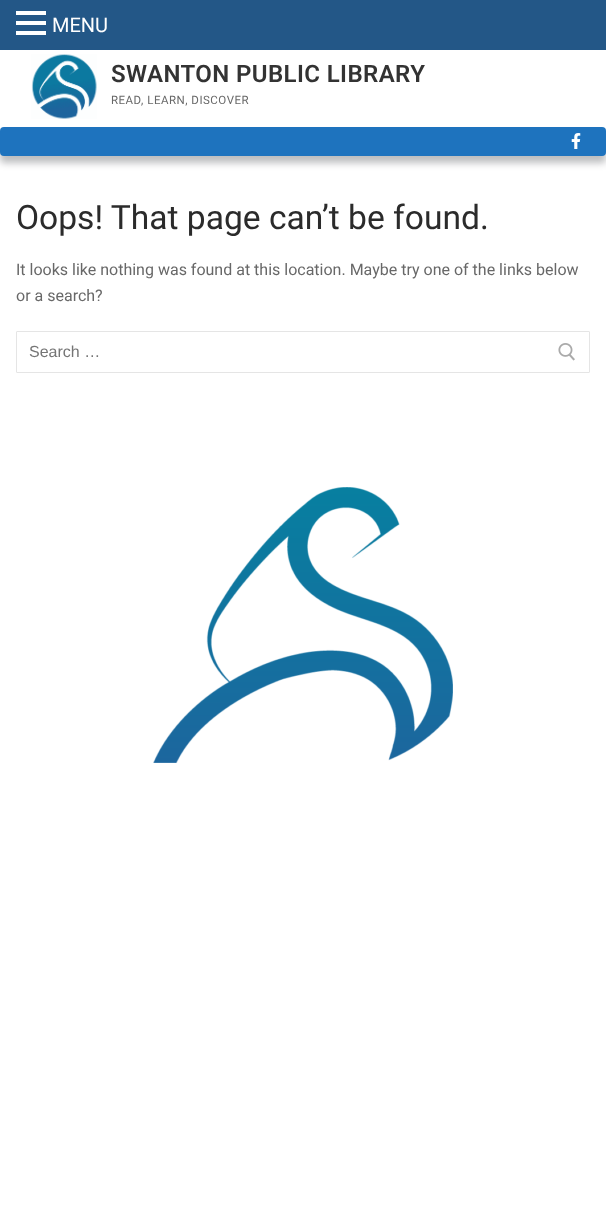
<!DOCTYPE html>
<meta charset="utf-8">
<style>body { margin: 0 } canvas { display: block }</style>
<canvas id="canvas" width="606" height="1225"></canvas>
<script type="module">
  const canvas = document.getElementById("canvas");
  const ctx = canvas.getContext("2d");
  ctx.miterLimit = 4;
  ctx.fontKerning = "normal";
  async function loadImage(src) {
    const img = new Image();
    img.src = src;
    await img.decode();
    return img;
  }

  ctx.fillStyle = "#ffffff";
  ctx.fillRect(0, 0, 606, 1225);
  ctx.fillStyle = "#235787";
  ctx.fillRect(0, 0, 606, 50);
  ctx.fillStyle = "#ffffff";
  ctx.fillRect(16, 11, 30, 4);
  ctx.fillRect(16, 21, 30, 4);
  ctx.fillRect(16, 31, 30, 4);
  ctx.font = "20px Roboto";
  ctx.fillText("MENU", 52, 32);
  ctx.drawImage(await loadImage("img1.png"), 31, 54, 66, 65);
  ctx.letterSpacing = "0.4px";
  ctx.font = "600 24px Roboto";
  ctx.fillStyle = "#333333";
  ctx.fillText("SWANTON PUBLIC LIBRARY", 111, 82);
  ctx.letterSpacing = "0.5px";
  ctx.font = "11.5px Roboto";
  ctx.fillStyle = "#686868";
  ctx.fillText("READ, LEARN, DISCOVER", 111, 104);
  ctx.fillStyle = "rgba(1, 2, 10, 0.26)";
  ctx.filter = "blur(3.5px)";
  ctx.beginPath();
  ctx.roundRect(0, 134, 606, 29, 4);
  ctx.fill();
  ctx.filter = "none";
  ctx.fillStyle = "#1e73be";
  ctx.beginPath();
  ctx.roundRect(0, 127, 606, 29, 4);
  ctx.fill();
  ctx.drawImage(await loadImage("img2.png"), 571, 133, 10, 16);
  ctx.letterSpacing = "0px";
  ctx.font = "33.6px Roboto";
  ctx.fillStyle = "#2b2b2b";
  ctx.fillText("Oops! That page can’t be found.", 16, 229);
  ctx.font = "16px Roboto";
  ctx.fillStyle = "#686868";
  ctx.fillText("It looks like nothing was found at this location. Maybe try one of the links below", 16, 275);
  ctx.fillText("or a search?", 16, 301);
  ctx.beginPath();
  ctx.roundRect(16.5, 331.5, 573, 41, 0.5);
  ctx.strokeStyle = "#e5e5e5";
  ctx.stroke();
  ctx.font = "16px Liberation Sans";
  ctx.fillStyle = "#757575";
  ctx.fillText("Search …", 29, 357);
  ctx.drawImage(await loadImage("img3.png"), 558, 343, 17, 18);
  ctx.drawImage(await loadImage("img4.png"), 153, 487, 300, 276);
</script>
